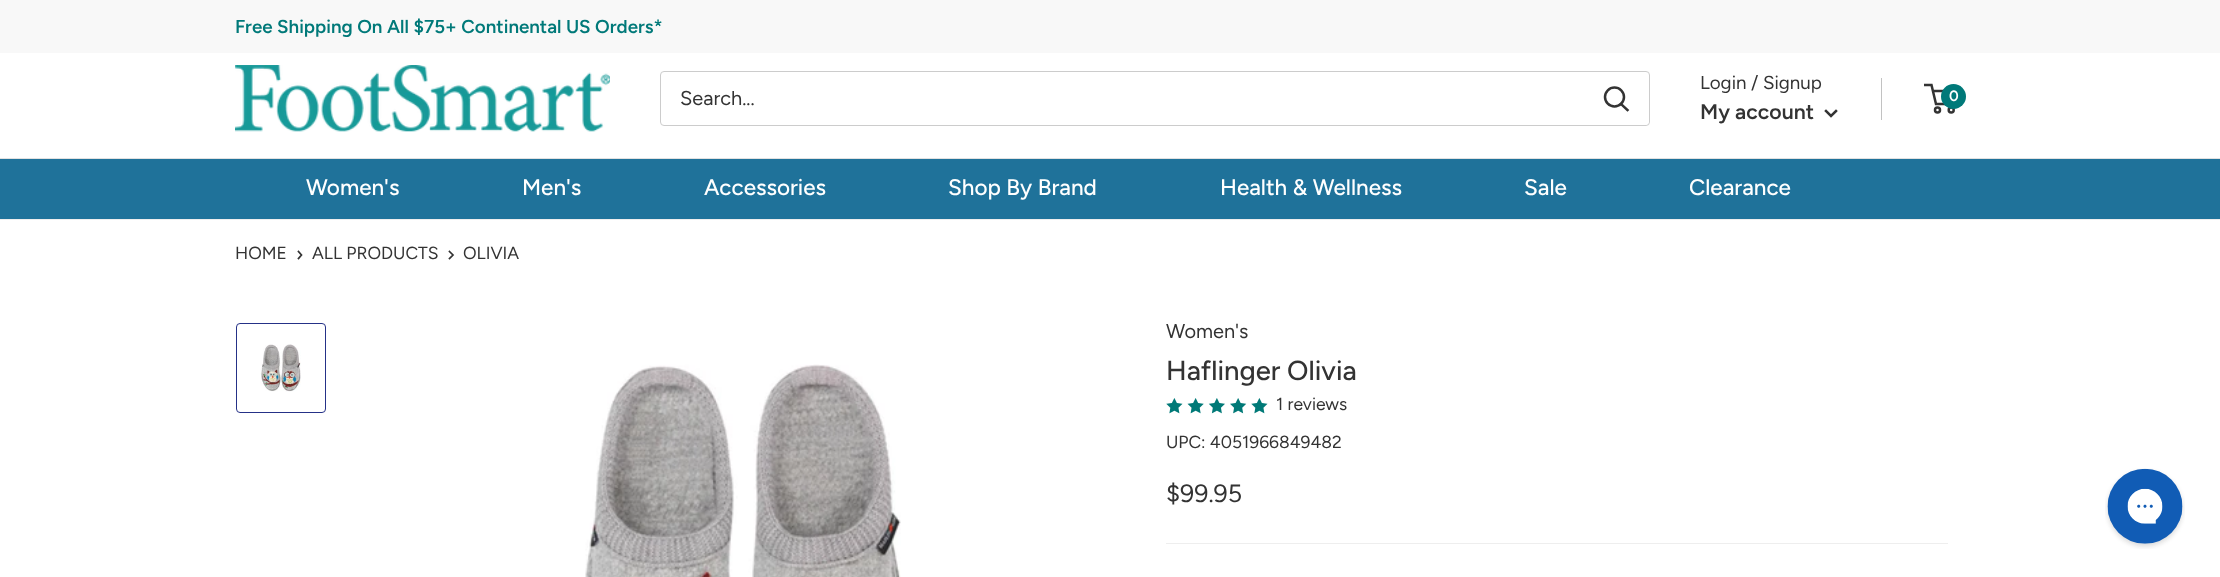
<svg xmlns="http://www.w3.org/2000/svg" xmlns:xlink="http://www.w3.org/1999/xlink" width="2220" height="577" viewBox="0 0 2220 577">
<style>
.cls-1{font:600 18.75px Figtree;fill:#007979}
.cls-2{font:20px Figtree;fill:#333333}
.cls-3{font:18.75px Figtree;fill:#333333}
.cls-4{font:600 21.25px Figtree;fill:#333333}
.cls-5{font:600 15px Figtree;fill:#ffffff}
.cls-6{font:500 22.5px Figtree;fill:#ffffff}
.cls-7{font:17.5px Figtree;fill:#333333}
.cls-8{font:500 27.5px Figtree;fill:#333333}
.cls-9{font:25px Figtree;fill:#333333}
</style>
<rect width="100%" height="100%" fill="#ffffff"/>
<rect fill="#f8f8f8" x="0" y="0" width="2220" height="53"/>
<image xlink:href="image0.png" x="235" y="65" width="375" height="67"/>
<rect fill="none" stroke="#cccccc" x="660.5" y="71.5" width="989" height="54" rx="3.5"/>
<path fill="#ffffff" d="M1586 73H1645C1647 73 1649 75 1649 77V121C1649 123 1647 125 1645 125H1586Z"/>
<path fill="none" stroke="#333333" stroke-width="2.5" stroke-linecap="square" d="M1627.5 110L1621 104"/>
<circle fill="none" stroke="#333333" stroke-width="2.5" cx="1614.5" cy="97" r="9.5"/>
<rect fill="#c2c2c2" x="1881" y="78" width="1" height="42"/>
<path fill="none" stroke="#333333" stroke-width="2.5" stroke-linecap="square" d="M1836 111L1831 116L1826 111"/>
<circle fill="none" stroke="#333333" stroke-width="2.5" cx="1937.5" cy="110" r="2.5"/>
<circle fill="none" stroke="#333333" stroke-width="2.5" cx="1951.2" cy="110" r="2.5"/>
<path fill="none" stroke="#333333" stroke-width="2.5" d="M1933 91H1955.5L1954 104H1936L1931.5 85H1924"/>
<circle fill="#007979" cx="1953.5" cy="96.5" r="12.5"/>
<rect fill="#1f729a" x="0" y="159" width="2220" height="60"/>
<rect fill="#e1e1e1" x="0" y="158" width="2220" height="1"/>
<rect fill="#eeeeee" x="0" y="219" width="2220" height="1"/>
<path fill="none" stroke="#333333" stroke-width="1.7" stroke-linecap="square" d="M298.5 251.5L301.5 255L298.5 258.5"/>
<path fill="none" stroke="#333333" stroke-width="1.7" stroke-linecap="square" d="M449.5 251.5L453 255L449.5 258.5"/>
<rect fill="none" stroke="#253187" x="236.5" y="323.5" width="89" height="89" rx="3.5"/>
<image xlink:href="image1.png" x="260" y="344" width="41" height="48"/>
<image xlink:href="image2.png" x="585" y="364" width="316" height="213"/>
<image xlink:href="image3.png" x="1166" y="398" width="17" height="16"/>
<image xlink:href="image4.png" x="1187" y="398" width="17" height="16"/>
<image xlink:href="image5.png" x="1208" y="398" width="17" height="16"/>
<image xlink:href="image6.png" x="1230" y="398" width="17" height="16"/>
<image xlink:href="image3.png" x="1251" y="398" width="17" height="16"/>
<rect fill="#eeeeee" x="1166" y="543" width="782" height="1"/>
<image xlink:href="image7.png" x="2105" y="468" width="80" height="81"/>
<text class="cls-1" x="235" y="33">Free Shipping On All $75+ Continental US Orders*</text>
<text class="cls-2" x="680" y="105">Search...</text>
<text class="cls-3" x="1700" y="89">Login / Signup</text>
<text class="cls-4" x="1700" y="119">My account</text>
<text class="cls-5" x="1949" y="101">0</text>
<text class="cls-6" x="306" y="195">Women's</text>
<text class="cls-6" x="522" y="195">Men's</text>
<text class="cls-6" x="704" y="195">Accessories</text>
<text class="cls-6" x="948" y="195">Shop By Brand</text>
<text class="cls-6" x="1220" y="195">Health &amp; Wellness</text>
<text class="cls-6" x="1524" y="195">Sale</text>
<text class="cls-6" x="1689" y="195">Clearance</text>
<text class="cls-7" x="235" y="259">HOME</text>
<text class="cls-7" x="312" y="259">ALL PRODUCTS</text>
<text class="cls-7" x="463" y="259">OLIVIA</text>
<text class="cls-2" x="1166" y="338">Women's</text>
<text class="cls-8" x="1166" y="380">Haflinger Olivia</text>
<text class="cls-7" x="1276" y="410">1 reviews</text>
<text class="cls-7" x="1166" y="448">UPC: 4051966849482</text>
<text class="cls-9" x="1166" y="502">$99.95</text>
</svg>
